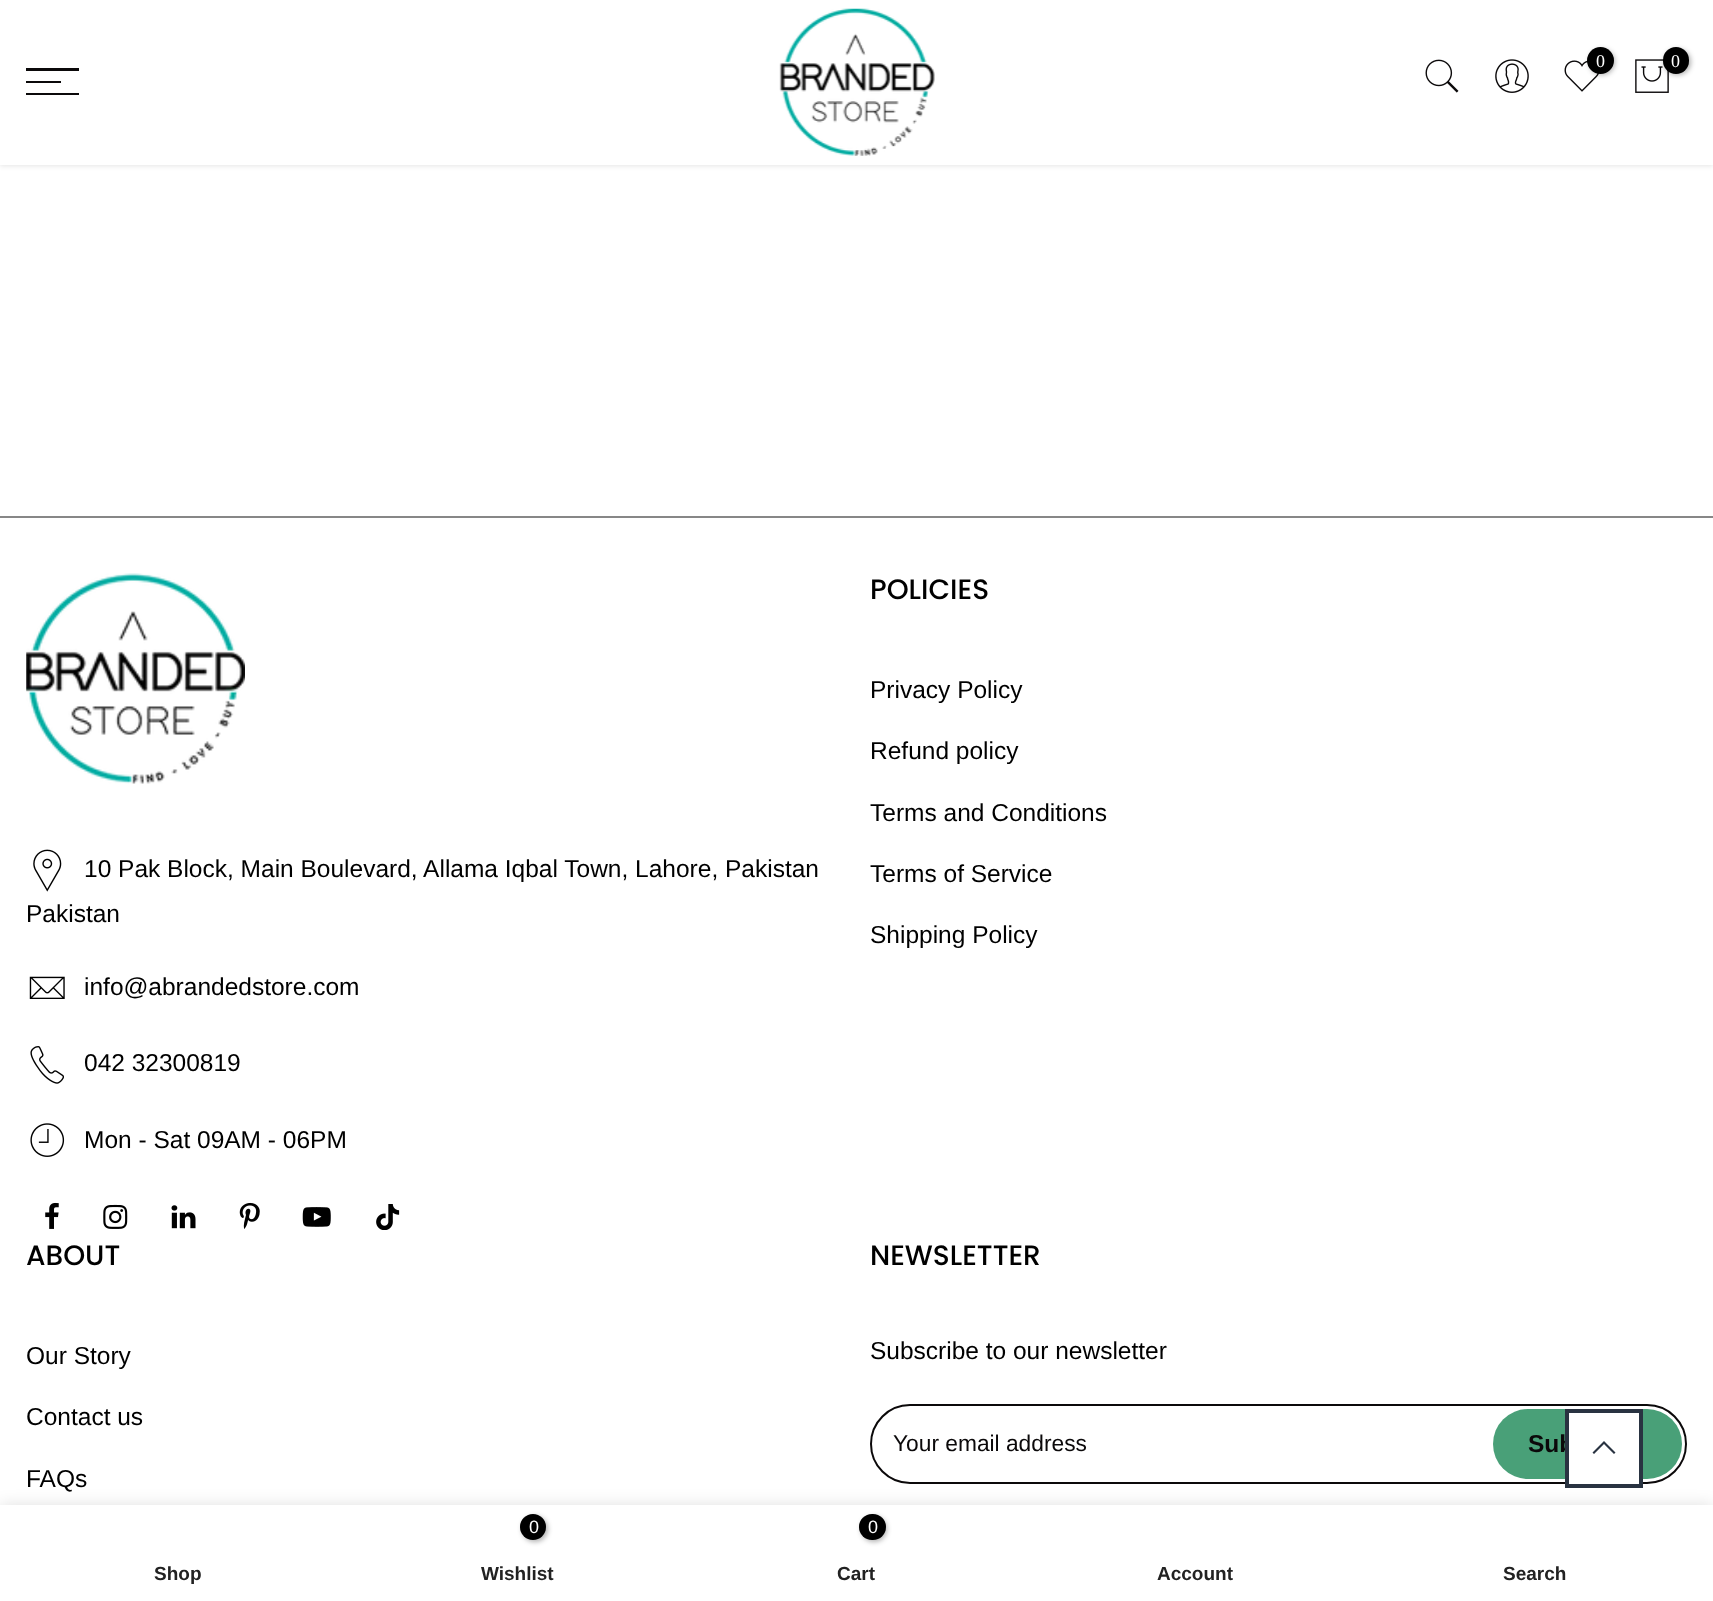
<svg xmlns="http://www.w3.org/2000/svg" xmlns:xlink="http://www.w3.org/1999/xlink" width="1713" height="1601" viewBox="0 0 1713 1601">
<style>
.cls-1{font:18px Liberation Serif;fill:#ffffff}
.cls-2{font:500 28px Poppins;fill:#000000}
.cls-3{font:24.5px Liberation Sans;fill:#000000}
.cls-4{font:22.75px Liberation Sans;fill:#0b090a}
.cls-5{font:bold 24.5px Liberation Sans;fill:#0b090a}
.cls-6{font:bold 19px Liberation Sans;fill:#222222}
.cls-7{font:18px Liberation Sans;fill:#ffffff}
</style>
<rect width="100%" height="100%" fill="#ffffff"/>
<rect fill="#000000" fill-opacity="0.1" filter="blur(2.5px)" x="0" y="2" width="1713" height="164"/>
<rect fill="#ffffff" x="0" y="0" width="1713" height="165"/>
<image xlink:href="image0.png" x="779" y="8" width="156" height="148"/>
<image xlink:href="image1.png" x="1425" y="59" width="34" height="34"/>
<image xlink:href="image2.png" x="1495" y="59" width="34" height="34"/>
<image xlink:href="image3.png" x="1564" y="60" width="35" height="32"/>
<rect fill="#000000" fill-opacity="0.3" filter="blur(2.5px)" x="1589" y="49" width="26" height="26" rx="13"/>
<circle fill="#000000" cx="1600.5" cy="60.5" r="13.5"/>
<image xlink:href="image4.png" x="1635" y="59" width="34" height="34"/>
<rect fill="#000000" fill-opacity="0.3" filter="blur(2.5px)" x="1664" y="49" width="27" height="26" rx="13"/>
<rect fill="#000000" x="1663" y="47" width="26" height="27" rx="13"/>
<rect fill="#0b090a" x="26" y="68" width="53" height="3"/>
<rect fill="#0b090a" x="26" y="81" width="35" height="2"/>
<rect fill="#0b090a" x="26" y="93" width="53" height="2"/>
<rect fill="#878787" x="0" y="516" width="1713" height="2"/>
<image xlink:href="image5.png" x="26" y="573" width="219" height="211"/>
<image xlink:href="image6.png" x="33" y="849" width="29" height="43"/>
<image xlink:href="image7.png" x="29" y="976" width="36" height="23"/>
<image xlink:href="image8.png" x="30" y="1046" width="34" height="38"/>
<image xlink:href="image9.png" x="30" y="1123" width="35" height="34"/>
<image xlink:href="image10.png" x="45" y="1202" width="14" height="27"/>
<image xlink:href="image11.png" x="103" y="1204" width="25" height="25"/>
<image xlink:href="image12.png" x="171" y="1205" width="25" height="24"/>
<image xlink:href="image13.png" x="239" y="1202" width="21" height="27"/>
<image xlink:href="image14.png" x="302" y="1207" width="29" height="20"/>
<image xlink:href="image15.png" x="376" y="1204" width="24" height="26"/>
<rect fill="none" stroke="#0b090a" stroke-width="2" x="871" y="1405" width="815" height="78" rx="39"/>
<rect fill="#49a078" x="1493" y="1409" width="189" height="70" rx="35"/>
<text class="cls-1" x="1596" y="67">0</text>
<text class="cls-1" x="1671" y="67">0</text>
<text class="cls-2" x="870" y="599">POLICIES</text>
<text class="cls-3" x="870" y="698">Privacy Policy</text>
<text class="cls-3" x="870" y="759">Refund policy</text>
<text class="cls-3" x="870" y="821">Terms and Conditions</text>
<text class="cls-3" x="870" y="882">Terms of Service</text>
<text class="cls-3" x="870" y="943">Shipping Policy</text>
<text class="cls-3" x="84" y="877">10 Pak Block, Main Boulevard, Allama Iqbal Town, Lahore, Pakistan</text>
<text class="cls-3" x="26" y="922">Pakistan</text>
<text class="cls-3" x="84" y="995">info@abrandedstore.com</text>
<text class="cls-3" x="84" y="1071">042 32300819</text>
<text class="cls-3" x="84" y="1148">Mon - Sat 09AM - 06PM</text>
<text class="cls-2" x="26" y="1265">ABOUT</text>
<text class="cls-3" x="26" y="1364">Our Story</text>
<text class="cls-3" x="26" y="1425">Contact us</text>
<text class="cls-3" x="26" y="1487">FAQs</text>
<text class="cls-2" x="870" y="1265">NEWSLETTER</text>
<text class="cls-3" x="870" y="1359">Subscribe to our newsletter</text>
<text class="cls-4" x="893" y="1451">Your email address</text>
<text class="cls-5" x="1528" y="1452">Sub</text>
<rect fill="#ffffff" stroke="#293341" stroke-width="4" x="1567" y="1411" width="74" height="75"/>
<path fill="#293341" d="M1605.5 1442.5L1604 1441L1592.5 1452.5L1594 1454L1604 1444L1614 1454L1615.5 1452.5Z"/>
<rect fill="#000000" fill-opacity="0.12" filter="blur(8px)" x="0" y="1505" width="1713" height="96"/>
<rect fill="#ffffff" x="0" y="1505" width="1713" height="96"/>
<text class="cls-6" x="154" y="1580">Shop</text>
<rect fill="#000000" fill-opacity="0.3" filter="blur(2.5px)" x="522" y="1516" width="26" height="26" rx="13"/>
<circle fill="#000000" cx="533" cy="1527" r="13"/>
<text class="cls-7" x="529" y="1533">0</text>
<text class="cls-6" x="481" y="1580">Wishlist</text>
<rect fill="#000000" fill-opacity="0.3" filter="blur(2.5px)" x="861" y="1516" width="26" height="26" rx="13"/>
<rect fill="#000000" x="859" y="1514" width="27" height="26" rx="13"/>
<text class="cls-7" x="868" y="1533">0</text>
<text class="cls-6" x="837" y="1580">Cart</text>
<text class="cls-6" x="1157" y="1580">Account</text>
<text class="cls-6" x="1503" y="1580">Search</text>
</svg>
